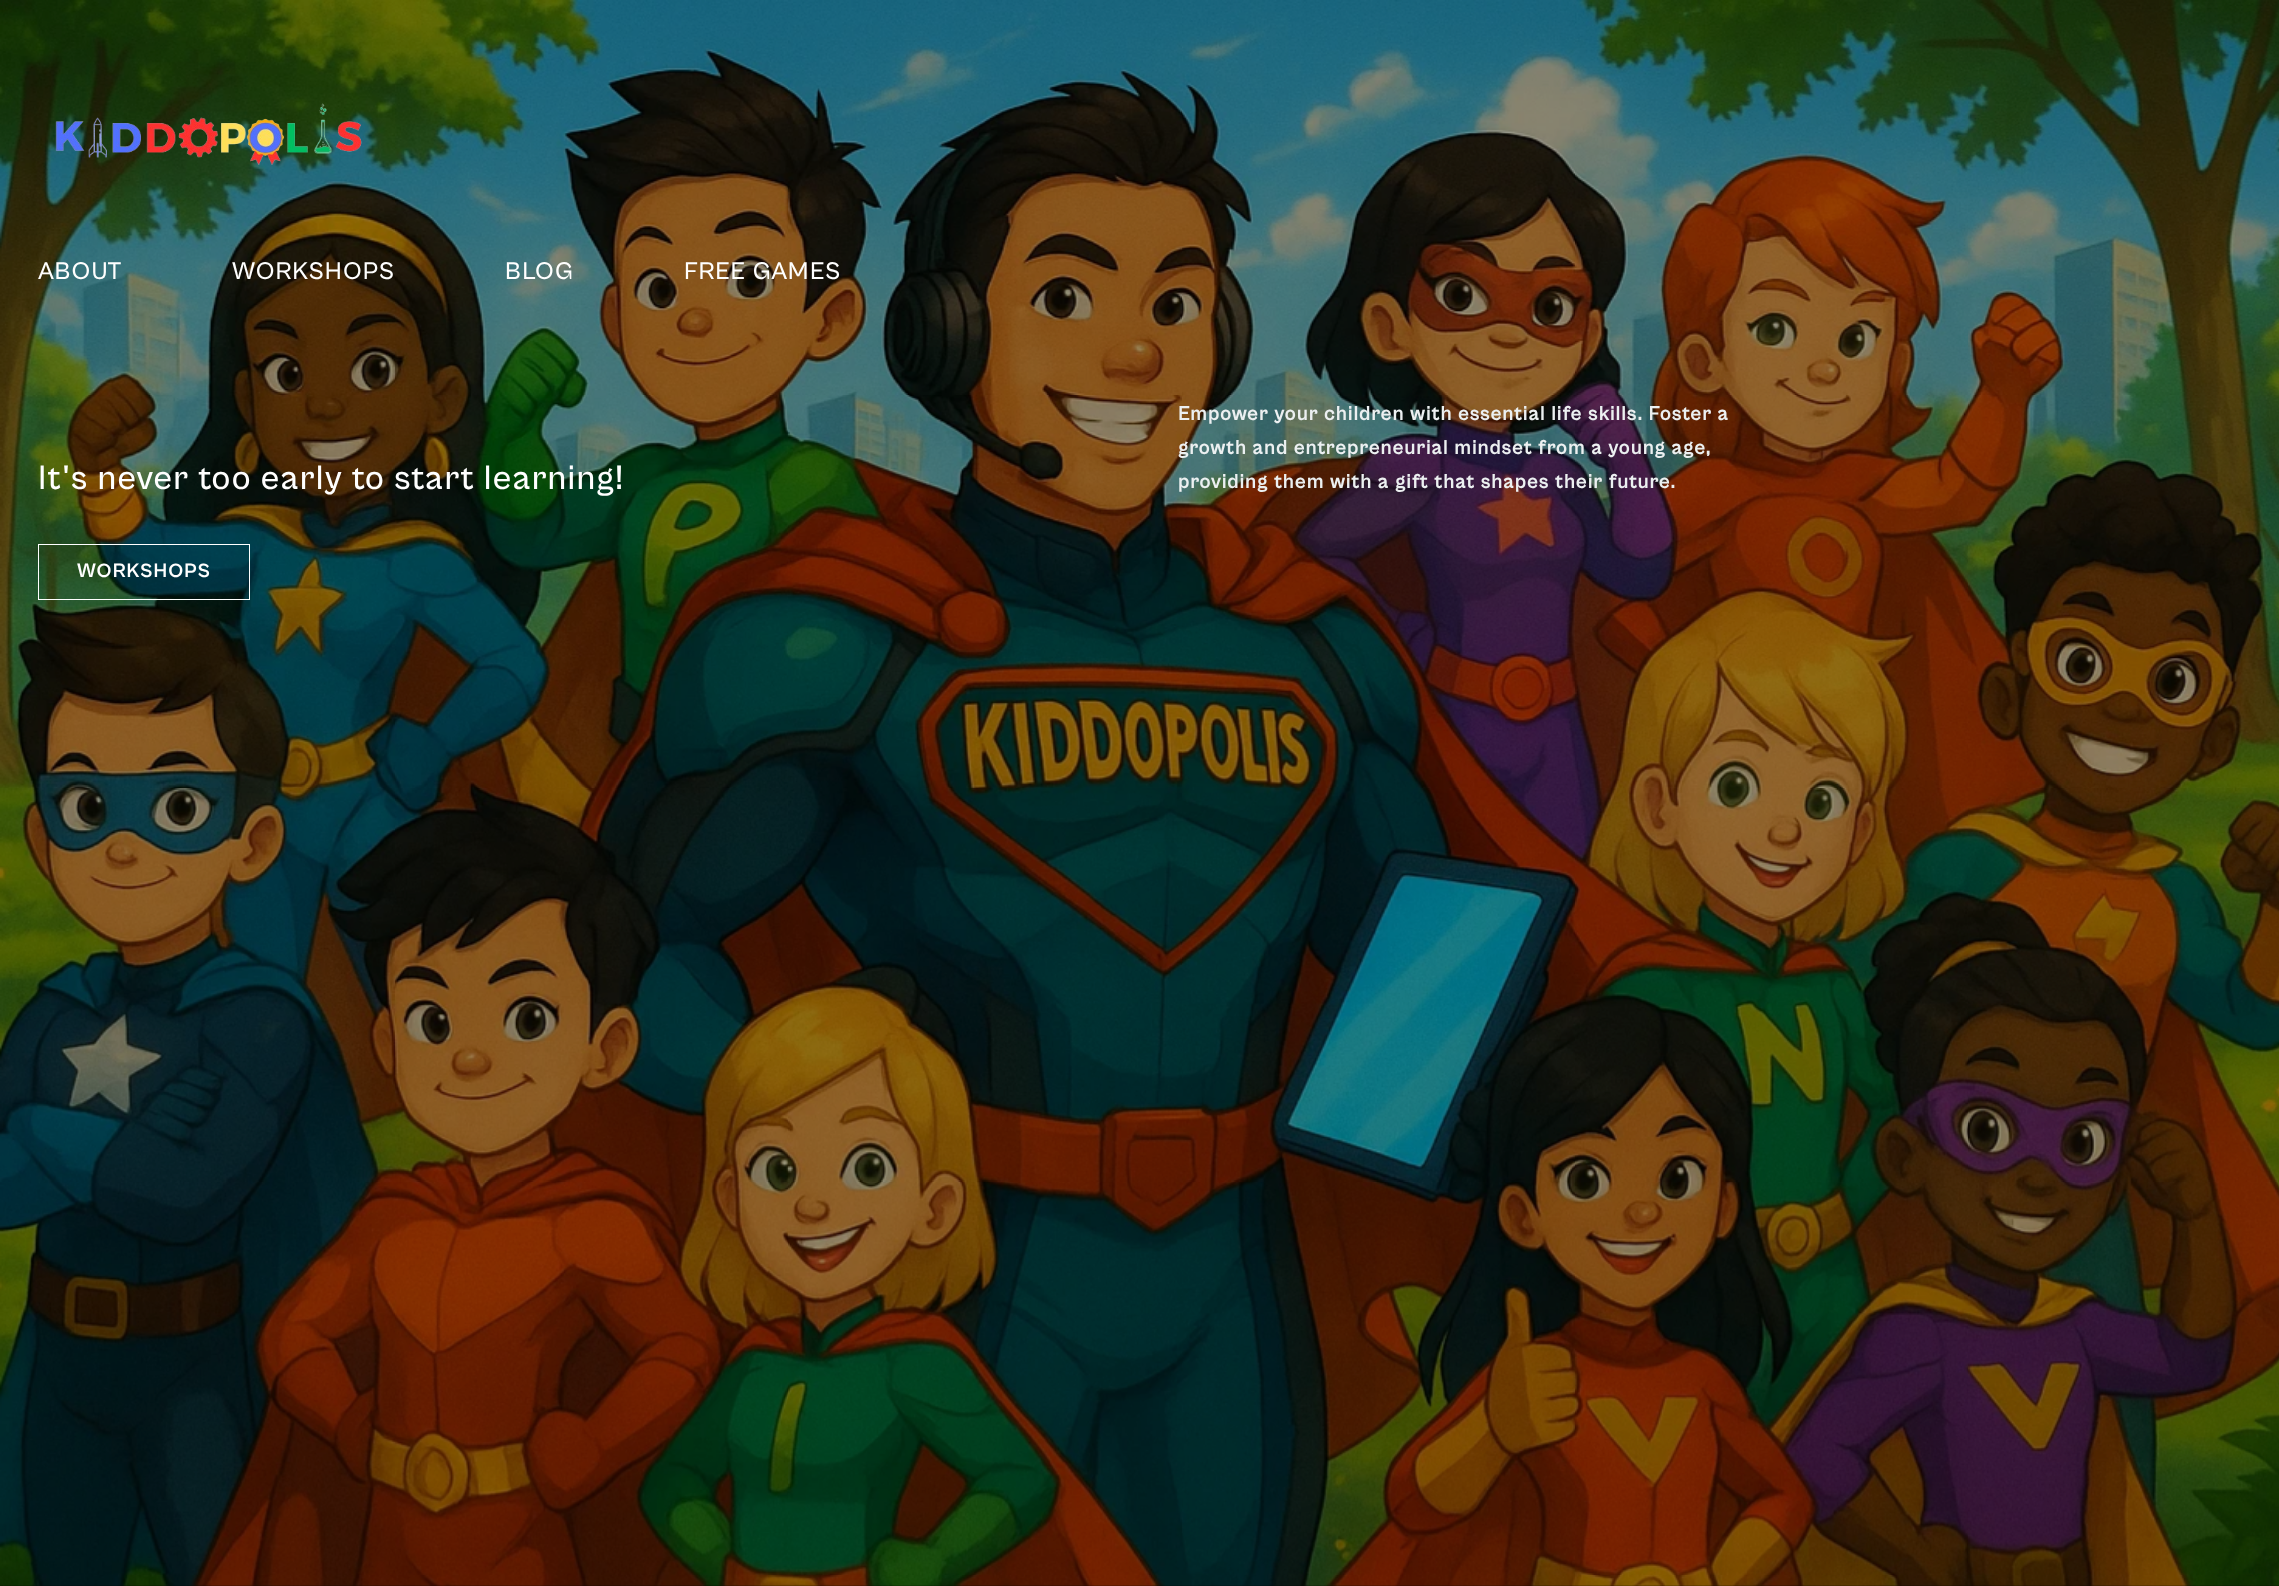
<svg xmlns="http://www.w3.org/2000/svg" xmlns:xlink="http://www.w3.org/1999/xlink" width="2279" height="1586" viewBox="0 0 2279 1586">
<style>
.cls-1{font:500 25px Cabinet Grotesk;letter-spacing:1.25px;fill:#ffffff}
.cls-2{font:500 35px Cabinet Grotesk;letter-spacing:1.25px;fill:#ffffff}
.cls-3{font:bold 20px 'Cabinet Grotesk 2';letter-spacing:1.25px;fill:#ffffff}
.cls-4{font:bold 20px Cabinet Grotesk;letter-spacing:1.25px;fill:#ecf0f1}
</style>
<rect width="100%" height="100%" fill="#000000"/>
<image xlink:href="image0.png" x="0" y="0" width="2279" height="1586"/>
<image xlink:href="image1.png" x="55" y="103" width="307" height="62"/>
<rect fill="none" stroke="#ffffff" x="38.5" y="544.5" width="211" height="55"/>
<text class="cls-1" x="38" y="279">ABOUT</text>
<text class="cls-1" x="232" y="279">WORKSHOPS</text>
<text class="cls-1" x="505" y="279">BLOG</text>
<text class="cls-1" x="684" y="279">FREE GAMES</text>
<text class="cls-2" x="38" y="489">It's never too early to start learning!</text>
<text class="cls-3" x="77" y="577">WORKSHOPS</text>
<text class="cls-4"><tspan x="1178" y="420">Empower your children with essential life skills. Foster a</tspan><tspan x="1178" y="454">growth and entrepreneurial mindset from a young age,</tspan><tspan x="1178" y="488">providing them with a gift that shapes their future.</tspan></text>
</svg>
